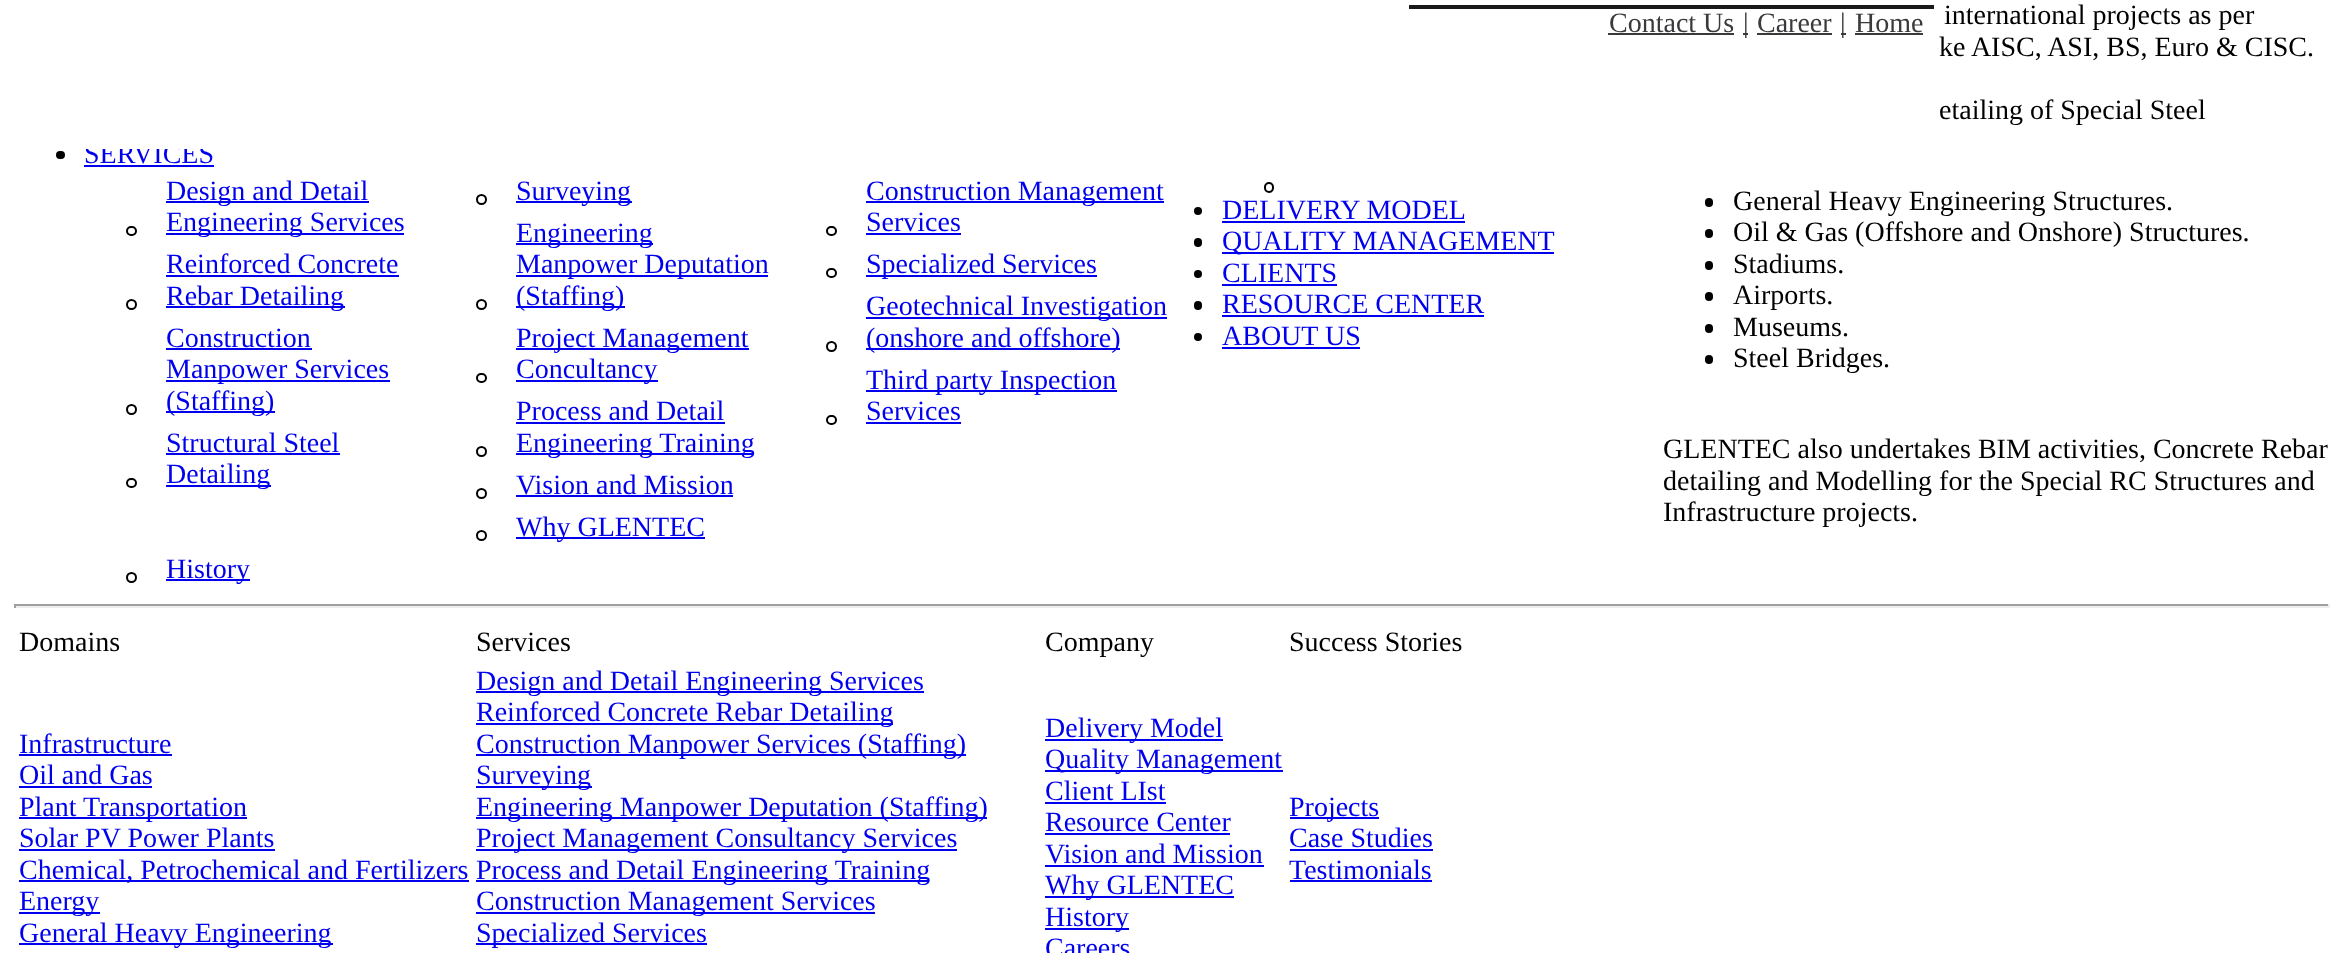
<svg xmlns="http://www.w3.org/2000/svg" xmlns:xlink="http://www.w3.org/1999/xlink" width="2342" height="953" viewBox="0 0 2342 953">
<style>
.cls-1{font:28px Liberation Serif;fill:#0000ee}
.cls-2{font:28px Liberation Serif;fill:#000000}
.cls-3{font:28px Liberation Serif;fill:#3a3a3d}
</style>
<rect width="100%" height="100%" fill="#ffffff"/>
<rect fill="#000000" x="56" y="151" width="9" height="8" rx="4"/>
<rect fill="#0000ee" x="84" y="165" width="130" height="2"/>
<rect fill="none" stroke="#000000" stroke-width="2" x="127" y="227" width="9" height="8" rx="4"/>
<rect fill="#0000ee" x="166" y="201" width="203" height="2"/>
<rect fill="#0000ee" x="166" y="233" width="238" height="2"/>
<circle fill="none" stroke="#000000" stroke-width="2" cx="131.5" cy="304.5" r="4.5"/>
<rect fill="#0000ee" x="166" y="275" width="233" height="2"/>
<rect fill="#0000ee" x="166" y="306" width="179" height="2"/>
<circle fill="none" stroke="#000000" stroke-width="2" cx="131.5" cy="409.5" r="4.5"/>
<rect fill="#0000ee" x="166" y="348" width="146" height="2"/>
<rect fill="#0000ee" x="166" y="380" width="224" height="2"/>
<rect fill="#0000ee" x="166" y="411" width="109" height="2"/>
<rect fill="none" stroke="#000000" stroke-width="2" x="127" y="479" width="9" height="8" rx="4"/>
<rect fill="#0000ee" x="166" y="453" width="174" height="2"/>
<rect fill="#0000ee" x="166" y="485" width="105" height="2"/>
<circle fill="none" stroke="#000000" stroke-width="2" cx="481.5" cy="199.5" r="4.5"/>
<rect fill="#0000ee" x="516" y="201" width="116" height="2"/>
<circle fill="none" stroke="#000000" stroke-width="2" cx="481.5" cy="304.5" r="4.5"/>
<rect fill="#0000ee" x="516" y="243" width="137" height="2"/>
<rect fill="#0000ee" x="516" y="275" width="252" height="2"/>
<rect fill="#0000ee" x="516" y="306" width="109" height="2"/>
<rect fill="none" stroke="#000000" stroke-width="2" x="477" y="374" width="9" height="8" rx="4"/>
<rect fill="#0000ee" x="516" y="348" width="233" height="2"/>
<rect fill="#0000ee" x="516" y="380" width="142" height="2"/>
<circle fill="none" stroke="#000000" stroke-width="2" cx="481.5" cy="451.5" r="4.5"/>
<rect fill="#0000ee" x="516" y="422" width="209" height="2"/>
<rect fill="#0000ee" x="516" y="453" width="238" height="2"/>
<rect fill="none" stroke="#000000" stroke-width="2" x="827" y="227" width="9" height="8" rx="4"/>
<rect fill="#0000ee" x="866" y="201" width="298" height="2"/>
<rect fill="#0000ee" x="866" y="233" width="95" height="2"/>
<rect fill="none" stroke="#000000" stroke-width="2" x="827" y="269" width="9" height="8" rx="4"/>
<rect fill="#0000ee" x="866" y="275" width="231" height="2"/>
<circle fill="none" stroke="#000000" stroke-width="2" cx="831.5" cy="346.5" r="4.5"/>
<rect fill="#0000ee" x="866" y="317" width="301" height="2"/>
<rect fill="#0000ee" x="866" y="348" width="254" height="2"/>
<rect fill="none" stroke="#000000" stroke-width="2" x="827" y="416" width="9" height="8" rx="4"/>
<rect fill="#0000ee" x="866" y="390" width="251" height="2"/>
<rect fill="#0000ee" x="866" y="422" width="95" height="2"/>
<rect fill="none" stroke="#000000" stroke-width="2" x="1265" y="183" width="8" height="9" rx="4"/>
<circle fill="#000000" cx="1198" cy="211" r="4"/>
<rect fill="#0000ee" x="1222" y="221" width="243" height="2"/>
<rect fill="#000000" x="1194" y="238" width="8" height="9" rx="4"/>
<rect fill="#0000ee" x="1222" y="252" width="332" height="2"/>
<circle fill="#000000" cx="1198" cy="274" r="4"/>
<rect fill="#0000ee" x="1222" y="284" width="115" height="2"/>
<rect fill="#000000" x="1194" y="301" width="8" height="9" rx="4"/>
<rect fill="#0000ee" x="1222" y="315" width="262" height="2"/>
<circle fill="#000000" cx="1198" cy="337" r="4"/>
<rect fill="#0000ee" x="1222" y="347" width="138" height="2"/>
<circle fill="none" stroke="#000000" stroke-width="2" cx="481.5" cy="493.5" r="4.5"/>
<rect fill="#0000ee" x="516" y="495" width="217" height="2"/>
<circle fill="none" stroke="#000000" stroke-width="2" cx="481.5" cy="535.5" r="4.5"/>
<rect fill="#0000ee" x="516" y="537" width="189" height="2"/>
<circle fill="none" stroke="#000000" stroke-width="2" cx="131.5" cy="577.5" r="4.5"/>
<rect fill="#0000ee" x="166" y="579" width="84" height="2"/>
<rect fill="#000000" x="1705" y="198" width="8" height="9" rx="4"/>
<rect fill="#000000" x="1705" y="229" width="8" height="9" rx="4"/>
<rect fill="#000000" x="1705" y="261" width="8" height="9" rx="4"/>
<rect fill="#000000" x="1705" y="292" width="8" height="9" rx="4"/>
<rect fill="#000000" x="1705" y="324" width="8" height="9" rx="4"/>
<rect fill="#000000" x="1705" y="355" width="8" height="9" rx="4"/>
<rect fill="#1a1a1a" x="1409" y="5" width="525" height="4"/>
<rect fill="#3a3a3d" x="1608" y="33" width="126" height="2"/>
<rect fill="#3a3a3d" x="1743" y="33" width="5" height="2"/>
<rect fill="#3a3a3d" x="1757" y="33" width="75" height="2"/>
<rect fill="#3a3a3d" x="1841" y="33" width="5" height="2"/>
<rect fill="#3a3a3d" x="1855" y="33" width="68" height="2"/>
<rect fill="#9f9f9f" x="14" y="604" width="2315" height="2"/>
<rect fill="#eeeeee" x="2328" y="604" width="2" height="4"/>
<rect fill="#eeeeee" x="14" y="606" width="2315" height="2"/>
<rect fill="#9f9f9f" x="14" y="604" width="2" height="4"/>
<rect fill="#0000ee" x="19" y="754" width="153" height="2"/>
<rect fill="#0000ee" x="19" y="786" width="133" height="2"/>
<rect fill="#0000ee" x="19" y="817" width="228" height="2"/>
<rect fill="#0000ee" x="19" y="849" width="256" height="2"/>
<rect fill="#0000ee" x="19" y="880" width="450" height="2"/>
<rect fill="#0000ee" x="19" y="912" width="81" height="2"/>
<rect fill="#0000ee" x="19" y="943" width="314" height="2"/>
<rect fill="#0000ee" x="476" y="691" width="448" height="2"/>
<rect fill="#0000ee" x="476" y="723" width="417" height="2"/>
<rect fill="#0000ee" x="476" y="754" width="490" height="2"/>
<rect fill="#0000ee" x="476" y="786" width="116" height="2"/>
<rect fill="#0000ee" x="476" y="817" width="511" height="2"/>
<rect fill="#0000ee" x="476" y="849" width="481" height="2"/>
<rect fill="#0000ee" x="476" y="880" width="453" height="2"/>
<rect fill="#0000ee" x="476" y="912" width="399" height="2"/>
<rect fill="#0000ee" x="476" y="943" width="231" height="2"/>
<rect fill="#0000ee" x="1045" y="739" width="178" height="2"/>
<rect fill="#0000ee" x="1045" y="770" width="238" height="2"/>
<rect fill="#0000ee" x="1045" y="802" width="121" height="2"/>
<rect fill="#0000ee" x="1045" y="833" width="185" height="2"/>
<rect fill="#0000ee" x="1045" y="865" width="219" height="2"/>
<rect fill="#0000ee" x="1045" y="896" width="189" height="2"/>
<rect fill="#0000ee" x="1045" y="928" width="84" height="2"/>
<rect fill="#0000ee" x="1290" y="817" width="89" height="2"/>
<rect fill="#0000ee" x="1290" y="849" width="143" height="2"/>
<rect fill="#0000ee" x="1290" y="880" width="142" height="2"/>
<text class="cls-1" x="84" y="163">SERVICES</text>
<text class="cls-1"><tspan x="166" y="200">Design and Detail</tspan><tspan x="166" y="231">Engineering Services</tspan><tspan x="166" y="273">Reinforced Concrete</tspan><tspan x="166" y="305">Rebar Detailing</tspan><tspan x="166" y="347">Construction</tspan><tspan x="166" y="378">Manpower Services</tspan><tspan x="166" y="410">(Staffing)</tspan><tspan x="166" y="452">Structural Steel</tspan><tspan x="166" y="483">Detailing</tspan></text>
<text class="cls-1"><tspan x="516" y="200">Surveying</tspan><tspan x="516" y="242">Engineering</tspan><tspan x="516" y="273">Manpower Deputation</tspan><tspan x="516" y="305">(Staffing)</tspan><tspan x="516" y="347">Project Management</tspan><tspan x="516" y="378">Concultancy</tspan><tspan x="516" y="420">Process and Detail</tspan><tspan x="516" y="452">Engineering Training</tspan></text>
<text class="cls-1"><tspan x="866" y="200">Construction Management</tspan><tspan x="866" y="231">Services</tspan><tspan x="866" y="273">Specialized Services</tspan><tspan x="866" y="315">Geotechnical Investigation</tspan><tspan x="866" y="347">(onshore and offshore)</tspan><tspan x="866" y="389">Third party Inspection</tspan><tspan x="866" y="420">Services</tspan></text>
<text class="cls-1"><tspan x="1222" y="219">DELIVERY MODEL</tspan><tspan x="1222" y="250">QUALITY MANAGEMENT</tspan><tspan x="1222" y="282">CLIENTS</tspan><tspan x="1222" y="313">RESOURCE CENTER</tspan><tspan x="1222" y="345">ABOUT US</tspan></text>
<text class="cls-1"><tspan x="516" y="494">Vision and Mission</tspan><tspan x="516" y="536">Why GLENTEC</tspan></text>
<text class="cls-1" x="166" y="578">History</text>
<text class="cls-2" x="1944" y="24">international projects as per</text>
<text class="cls-2" x="1939" y="56">ke AISC, ASI, BS, Euro &amp; CISC.</text>
<text class="cls-2" x="1939" y="119">etailing of Special Steel</text>
<text class="cls-2"><tspan x="1733" y="210">General Heavy Engineering Structures.</tspan><tspan x="1733" y="241">Oil &amp; Gas (Offshore and Onshore) Structures.</tspan><tspan x="1733" y="273">Stadiums.</tspan><tspan x="1733" y="304">Airports.</tspan><tspan x="1733" y="336">Museums.</tspan><tspan x="1733" y="367">Steel Bridges.</tspan></text>
<text class="cls-2"><tspan x="1663" y="458">GLENTEC also undertakes BIM activities, Concrete Rebar</tspan><tspan x="1663" y="490">detailing and Modelling for the Special RC Structures and</tspan><tspan x="1663" y="521">Infrastructure projects.</tspan></text>
<rect fill="#ffffff" x="85" y="144" width="127" height="5"/>
<text class="cls-3" x="1609" y="32">Contact Us</text>
<text class="cls-3" x="1743" y="32">|</text>
<text class="cls-3" x="1757" y="32">Career</text>
<text class="cls-3" x="1840" y="32">|</text>
<text class="cls-3" x="1855" y="32">Home</text>
<text class="cls-2" x="19" y="651">Domains</text>
<text class="cls-2" x="476" y="651">Services</text>
<text class="cls-2" x="1045" y="651">Company</text>
<text class="cls-2" x="1289" y="651">Success Stories</text>
<text class="cls-1"><tspan x="19" y="753">Infrastructure</tspan><tspan x="19" y="784">Oil and Gas</tspan><tspan x="19" y="816">Plant Transportation</tspan><tspan x="19" y="847">Solar PV Power Plants</tspan><tspan x="19" y="879">Chemical, Petrochemical and Fertilizers</tspan><tspan x="19" y="910">Energy</tspan><tspan x="19" y="942">General Heavy Engineering</tspan></text>
<text class="cls-1"><tspan x="476" y="690">Design and Detail Engineering Services</tspan><tspan x="476" y="721">Reinforced Concrete Rebar Detailing</tspan><tspan x="476" y="753">Construction Manpower Services (Staffing)</tspan><tspan x="476" y="784">Surveying</tspan><tspan x="476" y="816">Engineering Manpower Deputation (Staffing)</tspan><tspan x="476" y="847">Project Management Consultancy Services</tspan><tspan x="476" y="879">Process and Detail Engineering Training</tspan><tspan x="476" y="910">Construction Management Services</tspan><tspan x="476" y="942">Specialized Services</tspan></text>
<text class="cls-1"><tspan x="1045" y="737">Delivery Model</tspan><tspan x="1045" y="768">Quality Management</tspan><tspan x="1045" y="800">Client LIst</tspan><tspan x="1045" y="831">Resource Center</tspan><tspan x="1045" y="863">Vision and Mission</tspan><tspan x="1045" y="894">Why GLENTEC</tspan><tspan x="1045" y="926">History</tspan><tspan x="1045" y="957">Careers</tspan></text>
<text class="cls-1"><tspan x="1289" y="816">Projects</tspan><tspan x="1289" y="847">Case Studies</tspan><tspan x="1289" y="879">Testimonials</tspan></text>
</svg>
